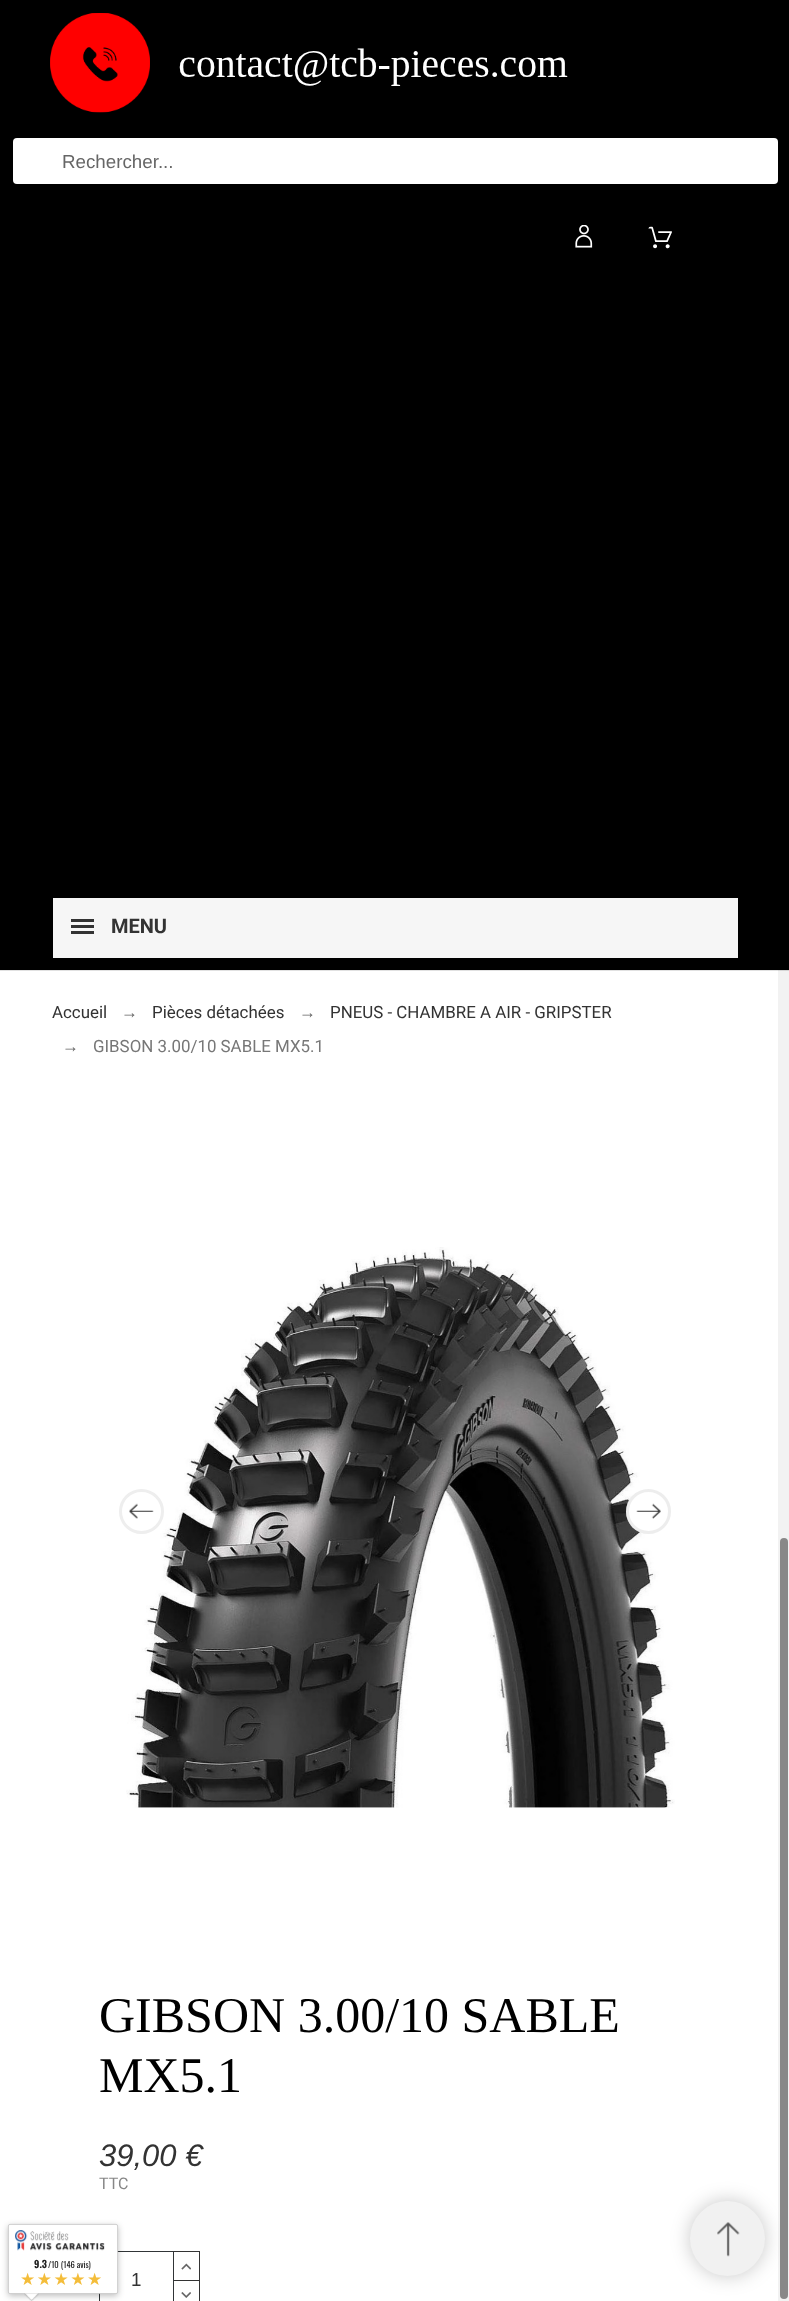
<svg xmlns="http://www.w3.org/2000/svg" xmlns:xlink="http://www.w3.org/1999/xlink" width="789" height="2301" viewBox="0 0 789 2301">
<style>
.cls-1{font:18.75px Liberation Sans;fill:#666666}
.cls-2{font:bold 20px Roboto;fill:#333333}
.cls-3{font:16.9px Roboto;fill:#333333}
.cls-4{font:16.9px Liberation Serif;fill:#666666}
.cls-5{font:16.9px Roboto;fill:#777777}
.cls-6{font:50px Liberation Serif;fill:#000000}
.cls-7{font:italic 31px Liberation Sans;fill:#333333}
.cls-8{font:16px Roboto;fill:#878787}
.cls-9{font:18.75px Liberation Sans;letter-spacing:1px;fill:#333333}
.cls-10{font:bold 10px Oswald;fill:#222222}
.cls-11{font:8.5px Oswald;fill:#222222}
.cls-12{font:17px DejaVu Sans;letter-spacing:1.5px;fill:#f4bd3a}
</style>
<rect width="100%" height="100%" fill="#ffffff"/>
<rect fill="#e1e1e1" x="0" y="970" width="789" height="1"/>
<rect fill="#000000" x="0" y="0" width="789" height="970"/>
<image xlink:href="image0.png" x="50" y="13" width="518" height="100"/>
<rect fill="#ffffff" x="13" y="138" width="765" height="46" rx="4"/>
<image xlink:href="image1.png" x="575" y="225" width="18" height="23"/>
<image xlink:href="image2.png" x="648" y="226" width="24" height="23"/>
<rect fill="#f6f6f6" x="53" y="898" width="685" height="60"/>
<rect fill="#333333" x="71" y="919" width="23" height="3"/>
<rect fill="#333333" x="71" y="925" width="23" height="3"/>
<rect fill="#333333" x="71" y="931" width="23" height="3"/>
<image xlink:href="image3.png" x="126" y="1247" width="549" height="561"/>
<circle fill="none" stroke="#eeeeee" stroke-width="3" cx="141.5" cy="1511.5" r="21"/>
<image xlink:href="image4.png" x="129" y="1503" width="25" height="16"/>
<circle fill="#ffffff" cx="648.5" cy="1511.5" r="22.5"/>
<circle fill="none" stroke="#dcdcdc" stroke-opacity="0.5" stroke-width="3" cx="648.5" cy="1511.5" r="21"/>
<image xlink:href="image5.png" x="636" y="1503" width="25" height="16"/>
<rect fill="none" stroke="#313537" x="99.5" y="2251.5" width="74" height="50"/>
<rect fill="#333333" x="174" y="2251" width="26" height="1"/>
<rect fill="#333333" x="199" y="2251" width="1" height="29"/>
<image xlink:href="image6.png" x="181" y="2263" width="10" height="7"/>
<rect fill="#333333" x="174" y="2280" width="26" height="1"/>
<rect fill="#333333" x="199" y="2280" width="1" height="21"/>
<image xlink:href="image7.png" x="181" y="2292" width="10" height="6"/>
<rect fill="#000000" fill-opacity="0.22" filter="blur(9.5px)" x="690" y="2201" width="75" height="75" rx="37.5"/>
<rect fill="#000000" fill-opacity="0.05" x="778" y="970" width="11" height="1331"/>
<rect fill="#888888" x="780" y="1538" width="8" height="761" rx="4"/>
<rect fill="#000000" fill-opacity="0.25" filter="blur(3px)" x="8" y="2226" width="110" height="70" rx="2"/>
<rect fill="#ffffff" stroke="#c5c5c5" stroke-width="0.8" x="8.4" y="2224.4" width="109.2" height="69.2" rx="1.6"/>
<image xlink:href="image8.png" x="15" y="2230" width="90" height="21"/>
<image xlink:href="image9.png" x="24" y="2293" width="15" height="8"/>
<circle fill="#f1f1f1" cx="727.5" cy="2238.5" r="37.5"/>
<image xlink:href="image10.png" x="717" y="2222" width="23" height="35"/>
<text class="cls-1" x="62" y="168">Rechercher...</text>
<text class="cls-2" x="111" y="933">MENU</text>
<text class="cls-3" x="52" y="1018">Accueil</text>
<text class="cls-4" x="121" y="1018">→</text>
<text class="cls-3" x="152" y="1018">Pièces détachées</text>
<text class="cls-4" x="299" y="1018">→</text>
<text class="cls-3" x="330" y="1018">PNEUS - CHAMBRE A AIR - GRIPSTER</text>
<text class="cls-4" x="62" y="1052">→</text>
<text class="cls-5" x="93" y="1052">GIBSON 3.00/10 SABLE MX5.1</text>
<text class="cls-6"><tspan x="99" y="2032">GIBSON 3.00/10 SABLE</tspan><tspan x="99" y="2092">MX5.1</tspan></text>
<text class="cls-7" x="99" y="2166">39,00 €</text>
<text class="cls-8" x="99" y="2189">TTC</text>
<text class="cls-9" x="131" y="2286">1</text>
<text class="cls-10" x="34" y="2268">9.3</text>
<text class="cls-11" x="48" y="2268">/10 (146 avis)</text>
<text class="cls-12" x="20" y="2285">★★★★★</text>
</svg>
